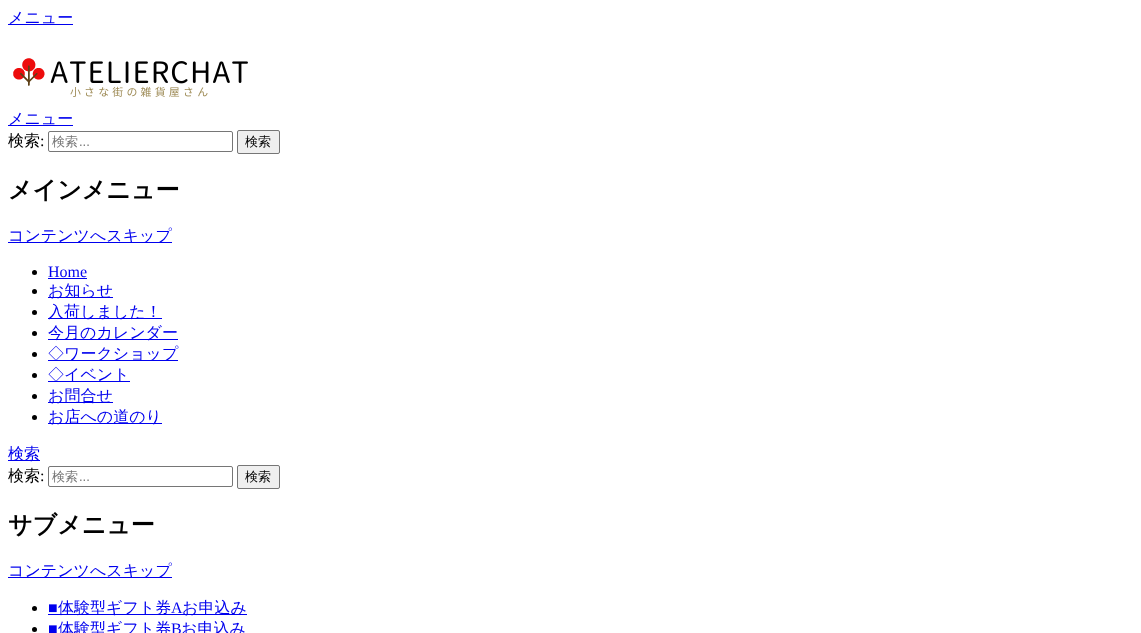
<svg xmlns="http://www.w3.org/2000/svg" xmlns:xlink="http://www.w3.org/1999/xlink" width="1141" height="633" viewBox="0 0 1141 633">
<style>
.cls-1{font:500 16px WenQuanYi Zen Hei;fill:#0000ee}
.cls-2{font:500 16px WenQuanYi Zen Hei;fill:#000000}
.cls-3{font:16px Liberation Serif;fill:#000000}
.cls-4{font:500 13px WenQuanYi Zen Hei;fill:#757575}
.cls-5{font:13px Liberation Sans;fill:#757575}
.cls-6{font:500 13px WenQuanYi Zen Hei;fill:#000000}
.cls-7{font:bold 24px WenQuanYi Zen Hei;fill:#000000}
.cls-8{font:16px Liberation Serif;fill:#0000ee}
</style>
<rect width="100%" height="100%" fill="#ffffff"/>
<rect fill="#0000ee" x="8" y="24" width="65" height="1"/>
<image xlink:href="image0.png" x="13" y="58" width="235" height="39"/>
<rect fill="#0000ee" x="8" y="125" width="65" height="1"/>
<rect fill="none" stroke="#767676" x="48.5" y="131.5" width="184" height="20" rx="1.5"/>
<rect fill="#efefef" stroke="#767676" x="237.5" y="130.5" width="42" height="23" rx="1.5"/>
<rect fill="#0000ee" x="8" y="242" width="164" height="1"/>
<circle fill="#000000" cx="34.5" cy="272.5" r="2.5"/>
<rect fill="#0000ee" x="48" y="278" width="39" height="1"/>
<circle fill="#000000" cx="34.5" cy="291.5" r="2.5"/>
<rect fill="#0000ee" x="48" y="297" width="65" height="1"/>
<circle fill="#000000" cx="34.5" cy="312.5" r="2.5"/>
<rect fill="#0000ee" x="48" y="318" width="114" height="1"/>
<circle fill="#000000" cx="34.5" cy="333.5" r="2.5"/>
<rect fill="#0000ee" x="48" y="339" width="130" height="1"/>
<circle fill="#000000" cx="34.5" cy="354.5" r="2.5"/>
<rect fill="#0000ee" x="48" y="360" width="130" height="1"/>
<circle fill="#000000" cx="34.5" cy="375.5" r="2.5"/>
<rect fill="#0000ee" x="48" y="381" width="82" height="1"/>
<circle fill="#000000" cx="34.5" cy="396.5" r="2.5"/>
<rect fill="#0000ee" x="48" y="402" width="65" height="1"/>
<circle fill="#000000" cx="34.5" cy="417.5" r="2.5"/>
<rect fill="#0000ee" x="48" y="423" width="114" height="1"/>
<rect fill="#0000ee" x="8" y="460" width="32" height="1"/>
<rect fill="none" stroke="#767676" x="48.5" y="466.5" width="184" height="20" rx="1.5"/>
<rect fill="#efefef" stroke="#767676" x="237.5" y="465.5" width="42" height="23" rx="1.5"/>
<rect fill="#0000ee" x="8" y="577" width="164" height="1"/>
<circle fill="#000000" cx="34.5" cy="608.5" r="2.5"/>
<rect fill="#0000ee" x="48" y="614" width="199" height="1"/>
<circle fill="#000000" cx="34.5" cy="629.5" r="2.5"/>
<text class="cls-1" x="8" y="23">メニュー</text>
<text class="cls-1" x="8" y="124">メニュー</text>
<text class="cls-2" x="8" y="146">検索</text>
<text class="cls-3" x="40" y="146">:</text>
<text class="cls-4" x="52" y="146">検索</text>
<text class="cls-5" x="79" y="146">...</text>
<text class="cls-6" x="245" y="146">検索</text>
<text class="cls-7" x="8" y="198">メインメニュー</text>
<text class="cls-1" x="8" y="241">コンテンツへスキップ</text>
<text class="cls-8" x="48" y="277">Home</text>
<text class="cls-1"><tspan x="48" y="296">お知らせ</tspan><tspan x="48" y="317">入荷しました！</tspan><tspan x="48" y="338">今月のカレンダー</tspan><tspan x="48" y="359">◇ワークショップ</tspan><tspan x="48" y="380">◇イベント</tspan><tspan x="48" y="401">お問合せ</tspan><tspan x="48" y="422">お店への道のり</tspan></text>
<text class="cls-1" x="8" y="459">検索</text>
<text class="cls-2" x="8" y="481">検索</text>
<text class="cls-3" x="40" y="481">:</text>
<text class="cls-4" x="52" y="481">検索</text>
<text class="cls-5" x="79" y="481">...</text>
<text class="cls-6" x="245" y="481">検索</text>
<text class="cls-7" x="8" y="533">サブメニュー</text>
<text class="cls-1" x="8" y="576">コンテンツへスキップ</text>
<text class="cls-8" x="48" y="613">■</text>
<text class="cls-1" x="58" y="613">体験型ギフト券</text>
<text class="cls-8" x="171" y="613">A</text>
<text class="cls-1" x="182" y="613">お申込み</text>
<text class="cls-8" x="48" y="634">■</text>
<text class="cls-1" x="58" y="634">体験型ギフト券</text>
<text class="cls-8" x="171" y="634">B</text>
<text class="cls-1" x="181" y="634">お申込み</text>
</svg>
